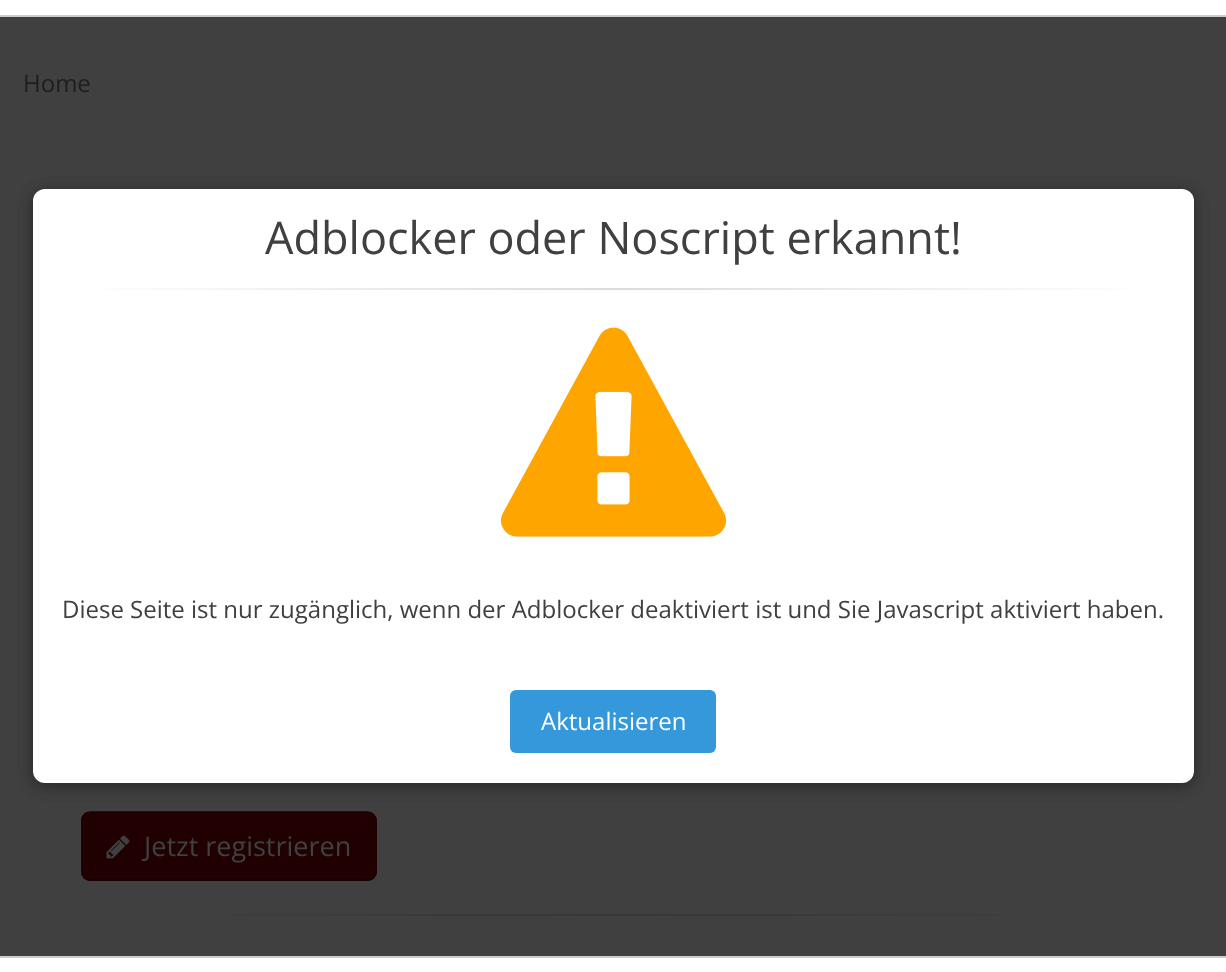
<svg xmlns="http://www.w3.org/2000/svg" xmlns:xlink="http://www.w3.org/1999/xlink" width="1226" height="972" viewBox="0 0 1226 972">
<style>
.cls-1{font:24px Open Sans;fill:#1e1e1e}
.cls-2{font:27px Open Sans;fill:#404040}
.cls-3{font:45px Open Sans;fill:#404040}
.cls-4{font:24px Open Sans;fill:#404040}
.cls-5{font:24px Open Sans;fill:#ffffff}
</style>
<defs>
<linearGradient id="g1" gradientUnits="userSpaceOnUse" x1="81" y1="914" x2="1146" y2="914"><stop offset="0" stop-color="#404040"/><stop offset="0.5" stop-color="#373737"/><stop offset="1" stop-color="#404040"/></linearGradient>
<linearGradient id="g2" gradientUnits="userSpaceOnUse" x1="63" y1="289" x2="1164" y2="289"><stop offset="0" stop-color="#ffffff"/><stop offset="0.5" stop-color="#dbdbdb"/><stop offset="1" stop-color="#ffffff"/></linearGradient>
</defs>
<rect width="100%" height="100%" fill="#404040"/>
<rect fill="#ffffff" x="0" y="0" width="1226" height="15"/>
<rect fill="#cccccc" x="0" y="15" width="1226" height="2"/>
<rect fill="#210002" x="81" y="812" width="296" height="69" rx="9"/>
<path fill="none" stroke="#140001" stroke-width="1.5" d="M373.5 877.5C372 879 369.5 880 367.5 880H90C88 880 85.5 879 84 877.5"/>
<path fill="none" stroke="#210002" stroke-width="1.5" d="M84 877.5C82.5 876 82 873.5 82 871.5V820.5C82 818.5 82.5 816 84 814.5C85.5 813 88 812 90 812H367.5C369.5 812 372 813 373.5 814.5C375 816 376 818.5 376 820.5V871.5C376 873.5 375 876 373.5 877.5"/>
<image xlink:href="image0.png" x="106" y="835" width="24" height="24"/>
<rect fill="url(#g1)" x="229" y="914" width="769" height="2"/>
<rect fill="#000000" fill-opacity="0.2" filter="blur(7.5px)" x="33" y="192" width="1161" height="594" rx="12"/>
<rect fill="#000000" fill-opacity="0.2" filter="blur(7.5px)" x="33" y="192" width="1161" height="594" rx="12"/>
<rect fill="#ffffff" x="33" y="189" width="1161" height="594" rx="12"/>
<rect fill="url(#g2)" x="101" y="288" width="1025" height="2"/>
<image xlink:href="image1.png" x="500" y="327" width="227" height="210"/>
<rect fill="#3498db" x="510" y="690" width="206" height="63" rx="6"/>
<rect fill="#ffffff" x="0" y="958" width="1226" height="14"/>
<rect fill="#cccccc" x="0" y="956" width="1226" height="2"/>
<text class="cls-1" x="23" y="92">Home</text>
<text class="cls-2" x="144" y="856">Jetzt registrieren</text>
<text class="cls-3" x="265" y="254">Adblocker oder Noscript erkannt!</text>
<text class="cls-4" x="62" y="618">Diese Seite ist nur zugänglich, wenn der Adblocker deaktiviert ist und Sie Javascript aktiviert haben.</text>
<text class="cls-5" x="541" y="730">Aktualisieren</text>
</svg>
